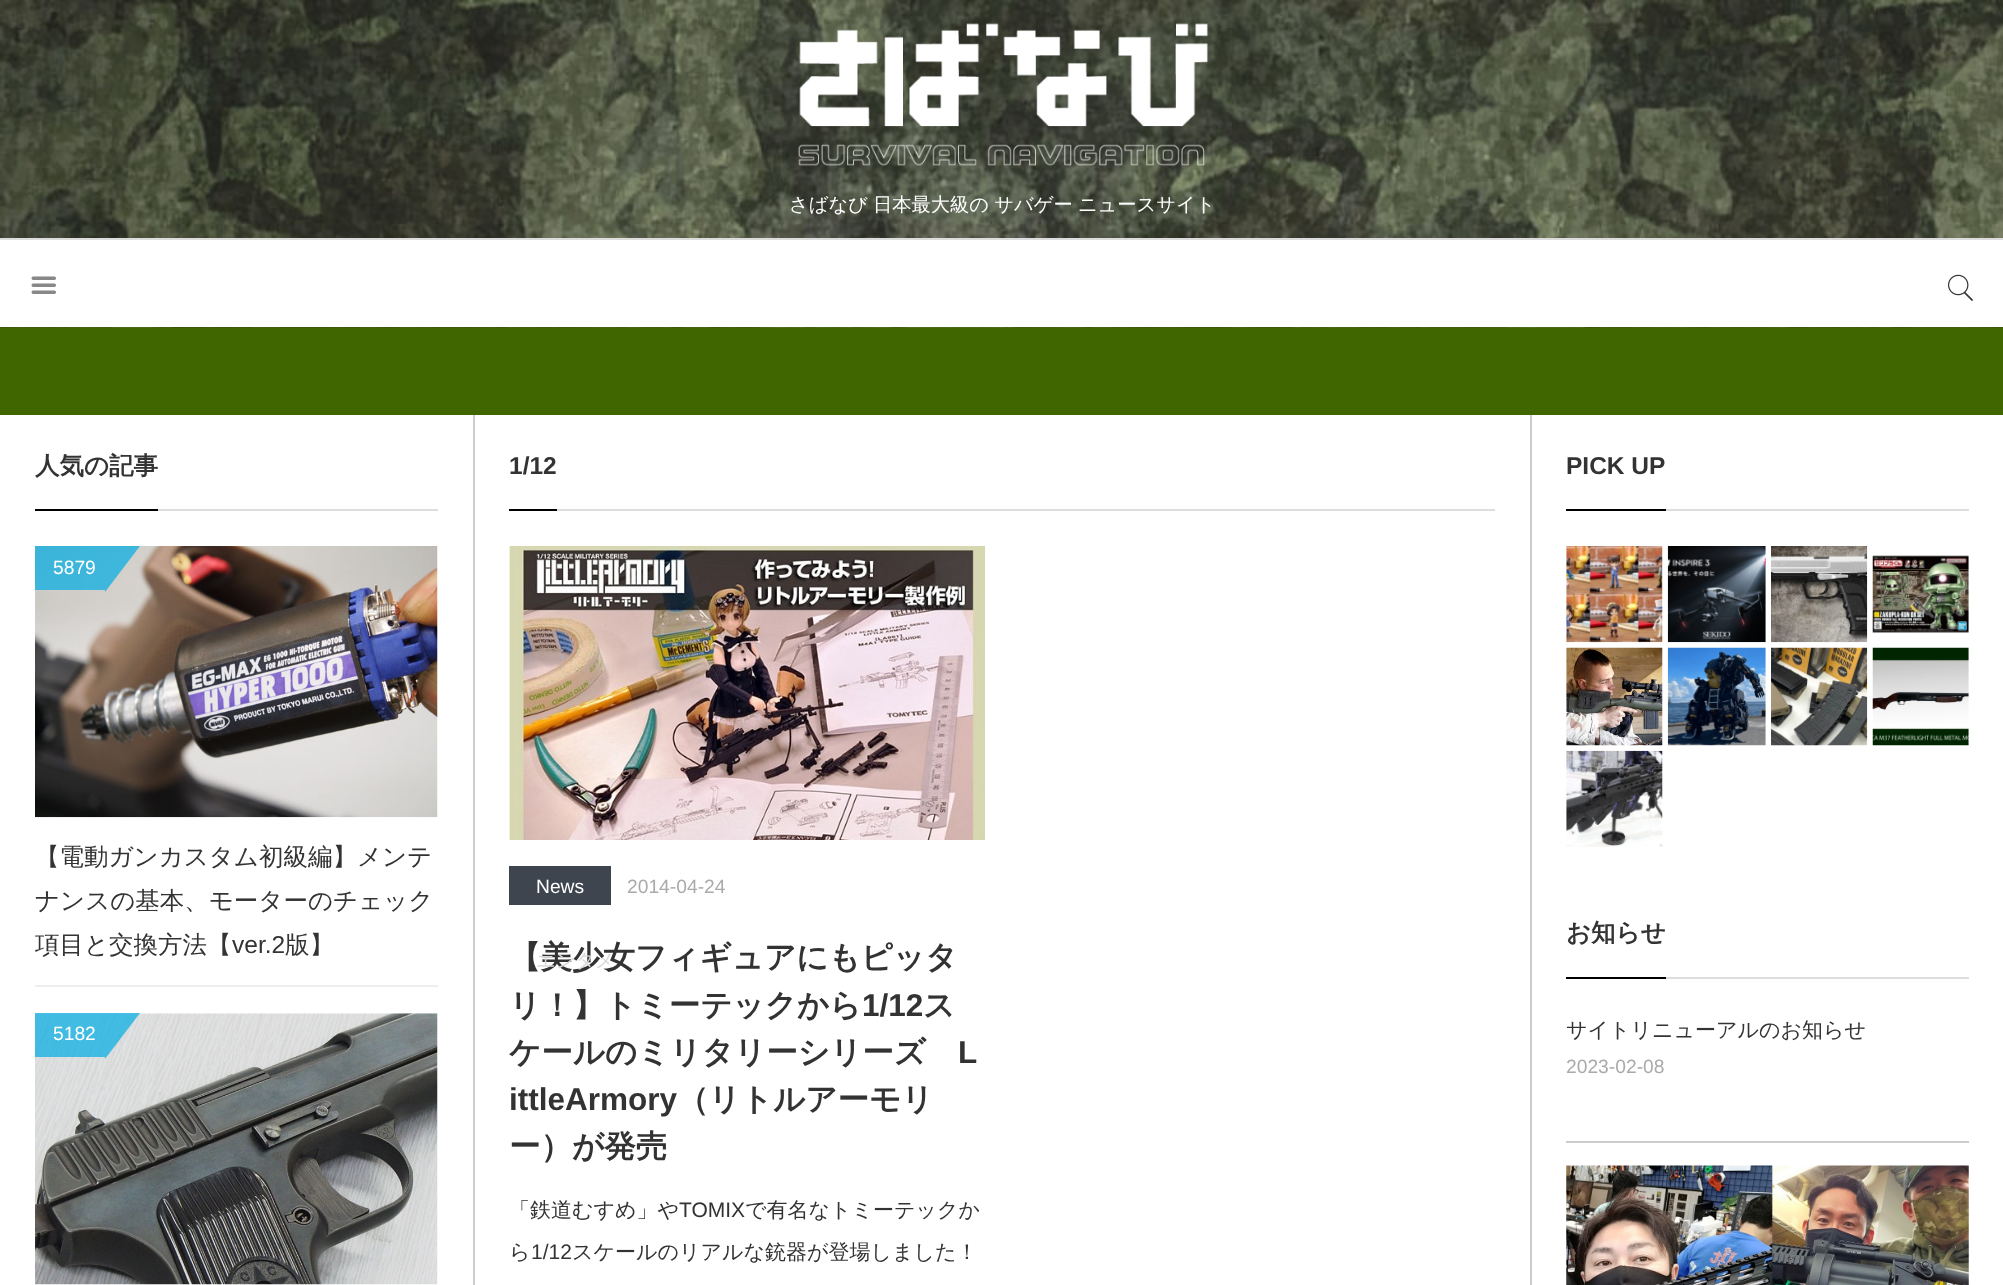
<svg xmlns="http://www.w3.org/2000/svg" xmlns:xlink="http://www.w3.org/1999/xlink" width="2003" height="1285" viewBox="0 0 2003 1285">
<style>
.cls-1{font:500 19.25px WenQuanYi Zen Hei;fill:#ffffff}
.cls-2{font:bold 24.5px WenQuanYi Zen Hei;fill:#333333}
.cls-3{font:19.25px Liberation Sans;fill:#ffffff}
.cls-4{font:500 24.5px WenQuanYi Zen Hei;fill:#333333}
.cls-5{font:24.5px Liberation Sans;fill:#333333}
.cls-6{font:bold 24.5px Liberation Sans;fill:#333333}
.cls-7{font:19.25px Liberation Sans;fill:#aaaaaa}
.cls-8{font:bold 31.5px WenQuanYi Zen Hei;fill:#333333}
.cls-9{font:500 19.25px WenQuanYi Zen Hei;fill:#d9d9d9}
.cls-10{font:bold 31.5px Liberation Sans;fill:#333333}
.cls-11{font:500 21px WenQuanYi Zen Hei;fill:#333333}
.cls-12{font:21px Liberation Sans;fill:#333333}
</style>
<rect width="100%" height="100%" fill="#ffffff"/>
<rect fill="#406600" x="0" y="327" width="2003" height="88"/>
<image xlink:href="image0.png" x="0" y="0" width="2003" height="328"/>
<image xlink:href="image1.png" x="798" y="23" width="410" height="143"/>
<rect fill="#ffffff" x="0" y="240" width="2003" height="87"/>
<rect fill="#dddddd" x="0" y="238" width="2003" height="2"/>
<image xlink:href="image2.png" x="31" y="276" width="25" height="18"/>
<image xlink:href="image3.png" x="1948" y="274" width="25" height="27"/>
<rect fill="#dddddd" x="158" y="509" width="280" height="2"/>
<rect fill="#000000" x="35" y="509" width="123" height="2"/>
<rect fill="#eeeeee" x="35" y="985" width="403" height="2"/>
<image xlink:href="image4.png" x="35" y="546" width="403" height="272"/>
<rect fill="#00ace4" fill-opacity="0.7" x="35" y="546" width="70" height="44"/>
<path fill="#00ace4" fill-opacity="0.7" d="M105 592V546H140Z"/>
<image xlink:href="image5.png" x="35" y="1013" width="403" height="272"/>
<rect fill="#00ace4" fill-opacity="0.7" x="35" y="1013" width="70" height="44"/>
<path fill="#00ace4" fill-opacity="0.7" d="M105 1059V1013H140Z"/>
<rect fill="#cccccc" x="1530" y="415" width="2" height="870"/>
<rect fill="#cccccc" x="473" y="415" width="2" height="870"/>
<rect fill="#dddddd" x="557" y="509" width="938" height="2"/>
<rect fill="#000000" x="509" y="509" width="48" height="2"/>
<image xlink:href="image6.png" x="509" y="546" width="477" height="294"/>
<rect fill="#3e454f" x="509" y="866" width="102" height="39"/>
<rect fill="#dddddd" x="1666" y="509" width="303" height="2"/>
<rect fill="#000000" x="1566" y="509" width="100" height="2"/>
<image xlink:href="image7.png" x="1566" y="546" width="97" height="97"/>
<image xlink:href="image8.png" x="1667" y="546" width="99" height="97"/>
<image xlink:href="image9.png" x="1771" y="546" width="97" height="97"/>
<image xlink:href="image10.png" x="1872" y="555" width="97" height="78"/>
<image xlink:href="image11.png" x="1566" y="647" width="97" height="99"/>
<image xlink:href="image12.png" x="1667" y="647" width="99" height="99"/>
<image xlink:href="image13.png" x="1771" y="647" width="97" height="99"/>
<image xlink:href="image14.png" x="1872" y="647" width="97" height="99"/>
<image xlink:href="image15.png" x="1566" y="750" width="97" height="97"/>
<rect fill="#dddddd" x="1666" y="977" width="303" height="2"/>
<rect fill="#000000" x="1566" y="977" width="100" height="2"/>
<rect fill="#cccccc" x="1566" y="1141" width="403" height="2"/>
<image xlink:href="image16.png" x="1566" y="1165" width="403" height="120"/>
<text class="cls-1" x="789" y="211" word-spacing="-0.5">さばなび 日本最大級の サバゲー ニュースサイト</text>
<text class="cls-2" x="35" y="474">人気の記事</text>
<text class="cls-3" x="53" y="574">5879</text>
<text class="cls-4"><tspan x="35" y="865">【電動ガンカスタム初級編】メンテ</tspan><tspan x="35" y="909">ナンスの基本、モーターのチェック</tspan><tspan x="35" y="953">項目と交換方法【</tspan></text>
<text class="cls-5" x="232" y="953">ver.2</text>
<text class="cls-4" x="285" y="953">版】</text>
<text class="cls-3" x="53" y="1040">5182</text>
<text class="cls-6" x="509" y="474">1/12</text>
<text class="cls-3" x="536" y="893">News</text>
<text class="cls-7" x="627" y="893">2014-04-24</text>
<text class="cls-8" x="509" y="968">【美少女フィギュアにもピッタ</text>
<text class="cls-9" x="536" y="967">エンタメ</text>
<text class="cls-8" x="509" y="1016">リ！】トミーテックから</text>
<text class="cls-10" x="862" y="1016">1/12</text>
<text class="cls-8" x="923" y="1016">ス</text>
<text class="cls-8" x="509" y="1063">ケールのミリタリーシリーズ</text>
<text class="cls-10" x="958" y="1063">L</text>
<text class="cls-10" x="509" y="1110">ittleArmory</text>
<text class="cls-8" x="677" y="1110">（リトルアーモリ</text>
<text class="cls-8" x="509" y="1157">ー）が発売</text>
<text class="cls-11" x="509" y="1217">「鉄道むすめ」や</text>
<text class="cls-12" x="679" y="1217">TOMIX</text>
<text class="cls-11" x="745" y="1217">で有名なトミーテックか</text>
<text class="cls-11" x="509" y="1259">ら</text>
<text class="cls-12" x="531" y="1259">1/12</text>
<text class="cls-11" x="572" y="1259">スケールのリアルな銃器が登場しました！</text>
<text class="cls-6" x="1566" y="474">PICK UP</text>
<text class="cls-2" x="1566" y="941">お知らせ</text>
<text class="cls-11" x="1566" y="1037">サイトリニューアルのお知らせ</text>
<text class="cls-7" x="1566" y="1073">2023-02-08</text>
</svg>
